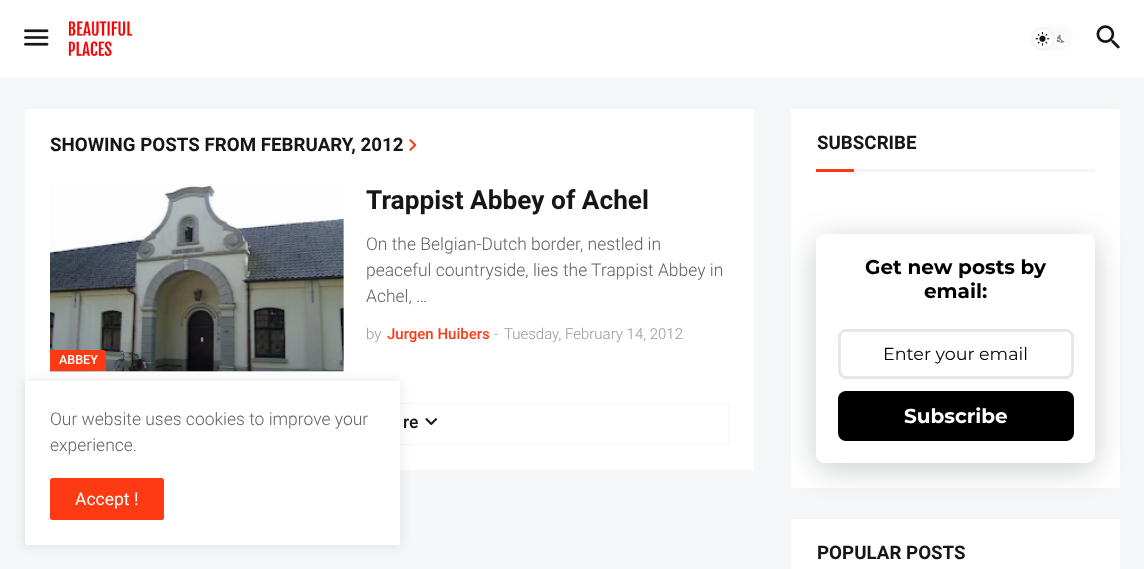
<svg xmlns="http://www.w3.org/2000/svg" xmlns:xlink="http://www.w3.org/1999/xlink" width="1144" height="569" viewBox="0 0 1144 569">
<style>
.cls-1{font:bold 18.75px Roboto;fill:#16161a}
.cls-2{font:bold 26.25px Roboto;fill:#16161a}
.cls-3{font:300 17.5px Roboto;fill:#626262}
.cls-4{font:300 15px Roboto;fill:#97979d}
.cls-5{font:500 15px Roboto;fill:#fd3a13}
.cls-6{font:500 12.5px Roboto;fill:#ffffff}
.cls-7{font:500 17.5px Roboto;fill:#16161a}
.cls-8{font:100 20px Montserrat;fill:#000000}
.cls-9{font:100 17.5px 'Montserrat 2';fill:#000000}
.cls-10{font:100 20px Montserrat;fill:#ffffff}
.cls-11{font:17.5px Roboto;fill:#ffffff}
</style>
<rect width="100%" height="100%" fill="#f5f6f7"/>
<rect fill="#ffffff" x="0" y="0" width="1144" height="78"/>
<image xlink:href="image0.png" x="24" y="29" width="25" height="17"/>
<image xlink:href="image1.png" x="68" y="21" width="65" height="35"/>
<rect fill="#fafafa" x="1030" y="26" width="43" height="25" rx="12.5"/>
<image xlink:href="image3.png" x="1056" y="34" width="9" height="9"/>
<rect fill="#000000" fill-opacity="0.1" filter="blur(1px)" x="1033" y="29" width="20" height="20" rx="10"/>
<circle fill="#ffffff" cx="1043" cy="39" r="10"/>
<image xlink:href="image2.png" x="1035" y="31" width="15" height="15"/>
<image xlink:href="image4.png" x="1096" y="25" width="24" height="24"/>
<rect fill="#ffffff" x="25" y="109" width="729" height="361" rx="2.5"/>
<image xlink:href="image5.png" x="409" y="139" width="8" height="12"/>
<rect fill="#fafafa" x="343" y="184" width="1" height="187"/>
<image xlink:href="image6.png" x="50" y="184" width="294" height="188"/>
<path fill="#fd3a13" d="M50 350H103.5C105 350 106 351 106 352.5V371H50Z"/>
<rect fill="none" stroke="#f5f5f5" x="50.5" y="403.5" width="678" height="41" rx="2"/>
<image xlink:href="image7.png" x="425" y="418" width="12" height="7"/>
<rect fill="#ffffff" x="791" y="109" width="329" height="379" rx="2.5"/>
<rect fill="#f5f5f5" x="854" y="169" width="241" height="3"/>
<rect fill="#fd3a13" x="816" y="169" width="38" height="3"/>
<rect fill="#223c2f" fill-opacity="0.25" filter="blur(15.5px)" x="816" y="240" width="279" height="229" rx="8"/>
<rect fill="#ffffff" x="816" y="234" width="279" height="229" rx="8"/>
<rect fill="none" stroke="#e9e8e8" stroke-width="3" x="839.5" y="330.5" width="233" height="47" rx="6.5"/>
<rect fill="#000000" x="838" y="391" width="236" height="50" rx="8"/>
<rect fill="#ffffff" x="791" y="519" width="329" height="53" rx="2.5"/>
<rect fill="#000000" fill-opacity="0.1" filter="blur(6px)" x="25" y="381" width="375" height="164" rx="2.5"/>
<rect fill="#ffffff" x="25" y="381" width="375" height="164" rx="2.5"/>
<rect fill="#fd3a13" x="50" y="478" width="114" height="42" rx="2.5"/>
<text class="cls-1" x="50" y="151">SHOWING POSTS FROM FEBRUARY, 2012</text>
<text class="cls-2" x="366" y="209">Trappist Abbey of Achel</text>
<text class="cls-3"><tspan x="366" y="250">On the Belgian-Dutch border, nestled in</tspan><tspan x="366" y="276">peaceful countryside, lies the Trappist Abbey in</tspan><tspan x="366" y="302">Achel, …</tspan></text>
<text class="cls-4" x="366" y="339">by</text>
<text class="cls-5" x="387" y="339">Jurgen Huibers</text>
<text class="cls-4" x="494" y="339">-</text>
<text class="cls-4" x="504" y="339">Tuesday, February 14, 2012</text>
<text class="cls-6" x="59" y="364">ABBEY</text>
<text class="cls-7" x="403" y="428">re</text>
<text class="cls-1" x="817" y="149">SUBSCRIBE</text>
<text class="cls-8" x="865" y="274">Get new posts by</text>
<text class="cls-8" x="924" y="298">email:</text>
<text class="cls-9" x="883" y="360">Enter your email</text>
<text class="cls-10" x="904" y="423">Subscribe</text>
<text class="cls-1" x="817" y="559">POPULAR POSTS</text>
<text class="cls-3"><tspan x="50" y="425">Our website uses cookies to improve your</tspan><tspan x="50" y="451">experience.</tspan></text>
<text class="cls-11" x="75" y="505">Accept !</text>
</svg>
